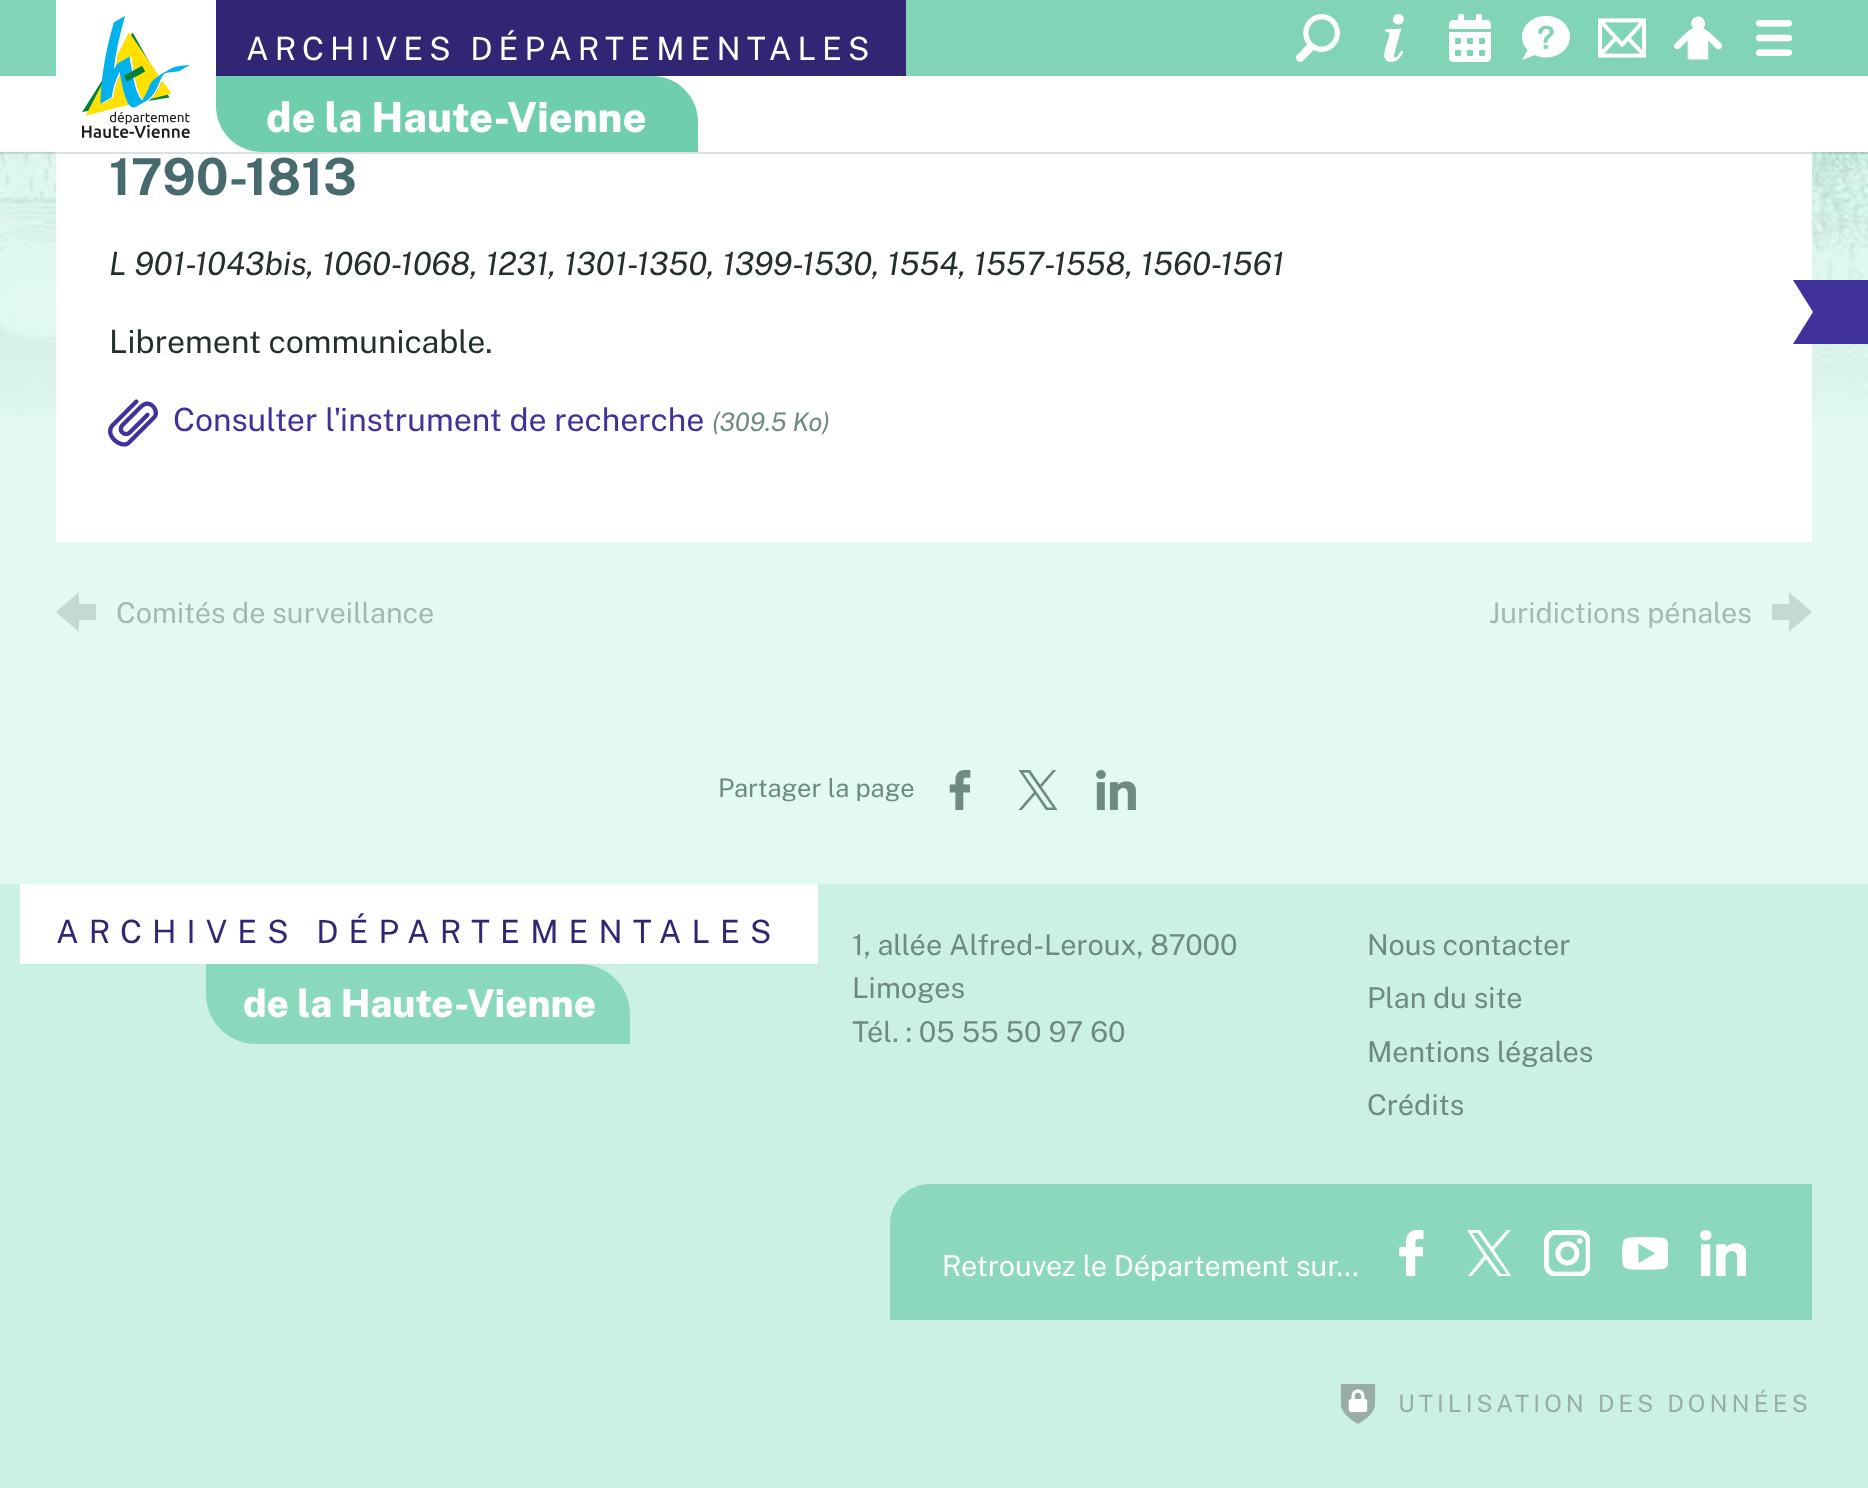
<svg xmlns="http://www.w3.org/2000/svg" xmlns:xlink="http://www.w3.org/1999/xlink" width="1868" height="1488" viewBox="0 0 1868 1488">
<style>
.cls-1{font:100 32px Public Sans;letter-spacing:6px;fill:#ffffff}
.cls-2{font:100 41.5px 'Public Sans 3';fill:#ffffff}
.cls-3{font:100 51px 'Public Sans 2';fill:#476a6f}
.cls-4{font:italic 100 32px Public Sans;fill:#252f2c}
.cls-5{font:100 32px Public Sans;fill:#252f2c}
.cls-6{font:100 32px Public Sans;fill:#41329b}
.cls-7{font:italic 100 25.5px Public Sans;fill:#6e8a81}
.cls-8{font:100 28.75px Public Sans;fill:#a6b8b2}
.cls-9{font:100 25.5px Public Sans;fill:#6e8a81}
.cls-10{font:100 32px Public Sans;letter-spacing:10px;fill:#312674}
.cls-11{font:100 38.5px 'Public Sans 3';fill:#ffffff}
.cls-12{font:100 28.75px Public Sans;fill:#6e8a81}
.cls-13{font:100 28.75px Public Sans;fill:#ffffff}
.cls-14{font:100 24px Public Sans;letter-spacing:4px;fill:#98ada6}
</style>
<defs>
<clipPath id="clip1"><rect x="1466" y="1230" width="46" height="46"/></clipPath>
</defs>
<rect width="100%" height="100%" fill="#e2faf2"/>
<image xlink:href="image0.png" x="0" y="152" width="1868" height="265"/>
<rect fill="#82d4b7" x="0" y="0" width="1868" height="76"/>
<rect fill="#ffffff" x="56" y="0" width="160" height="76"/>
<rect fill="#ffffff" x="0" y="76" width="1868" height="76"/>
<image xlink:href="image1.png" x="82" y="16" width="108" height="122"/>
<rect fill="#312674" x="216" y="0" width="690" height="76"/>
<image xlink:href="image2.png" x="1296" y="14" width="44" height="48"/>
<image xlink:href="image3.png" x="1384" y="14" width="20" height="48"/>
<image xlink:href="image4.png" x="1449" y="14" width="42" height="48"/>
<image xlink:href="image5.png" x="1522" y="15" width="48" height="45"/>
<image xlink:href="image6.png" x="1598" y="18" width="48" height="40"/>
<image xlink:href="image7.png" x="1674" y="16" width="48" height="44"/>
<path fill="#6fceac" d="M216 76H652C677.5 76 698 96.5 698 122V152H262C236.5 152 216 131.5 216 106Z"/>
<rect fill="#ffffff" x="56" y="152" width="1756" height="390"/>
<rect fill="#476a6f" fill-opacity="0.2" x="0" y="152" width="1868" height="2"/>
<image xlink:href="image8.png" x="1755" y="20" width="38" height="36"/>
<image xlink:href="image9.png" x="108" y="399" width="50" height="48"/>
<path fill="#c4d9d2" d="M79 620H96V604H79V592L56 612L79 632V620"/>
<path fill="#c4d9d2" d="M1789 620V632L1812 612L1789 592V604H1772V620H1789"/>
<path fill="#41329b" d="M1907 344H1793L1813 312L1793 280H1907Z"/>
<image xlink:href="image10.png" x="949" y="770" width="22" height="40"/>
<image xlink:href="image11.png" x="1018" y="770" width="40" height="40"/>
<image xlink:href="image12.png" x="1096" y="770" width="40" height="40"/>
<rect fill="#cbf1e4" x="0" y="884" width="1868" height="604"/>
<rect fill="#ffffff" x="20" y="884" width="798" height="80"/>
<path fill="#8bd9bd" d="M206 964H580C607.5 964 630 986.5 630 1014V1044H256C228.5 1044 206 1021.5 206 994Z"/>
<path fill="#8bd8bd" d="M930 1184H1812V1320H890V1224C890 1202 908 1184 930 1184Z"/>
<image xlink:href="image13.png" x="1399" y="1230" width="25" height="46"/>
<g clip-path="url(#clip1)">
<path fill="#ffffff" d="M1494 1250L1511 1230H1507L1492 1247L1480 1230H1467L1484 1256L1467 1277H1471L1486 1259L1499 1277H1512ZM1488 1256L1472 1233H1478L1507 1274H1501Z"/>
</g>
<image xlink:href="image14.png" x="1544" y="1230" width="46" height="46"/>
<image xlink:href="image15.png" x="1622" y="1237" width="46" height="33"/>
<image xlink:href="image16.png" x="1700" y="1230" width="46" height="46"/>
<image xlink:href="image17.png" x="1340" y="1384" width="36" height="40"/>
<text class="cls-1" x="246" y="60">ARCHIVES DÉPARTEMENTALES</text>
<text class="cls-2" x="266" y="132">de la Haute-Vienne</text>
<text class="cls-3" x="109" y="195">1790-1813</text>
<text class="cls-4" x="109" y="275">L 901-1043bis, 1060-1068, 1231, 1301-1350, 1399-1530, 1554, 1557-1558, 1560-1561</text>
<text class="cls-5" x="109" y="353">Librement communicable.</text>
<text class="cls-6" x="173" y="431">Consulter l'instrument de recherche</text>
<text class="cls-7" x="712" y="431">(309.5 Ko)</text>
<text class="cls-8" x="116" y="623">Comités de surveillance</text>
<text class="cls-8" x="1489" y="623">Juridictions pénales</text>
<text class="cls-9" x="718" y="797">Partager la page</text>
<text class="cls-10" x="56" y="943">ARCHIVES DÉPARTEMENTALES</text>
<text class="cls-11" x="243" y="1017">de la Haute-Vienne</text>
<text class="cls-12"><tspan x="852" y="955">1, allée Alfred-Leroux, 87000</tspan><tspan x="852" y="998">Limoges</tspan><tspan x="852" y="1042">Tél. : 05 55 50 97 60</tspan></text>
<text class="cls-12"><tspan x="1367" y="955">Nous contacter</tspan><tspan x="1367" y="1008">Plan du site</tspan><tspan x="1367" y="1062">Mentions légales</tspan><tspan x="1367" y="1115">Crédits</tspan></text>
<text class="cls-13" x="942" y="1276">Retrouvez le Département sur…</text>
<text class="cls-14" x="1398" y="1412">UTILISATION DES DONNÉES</text>
</svg>
